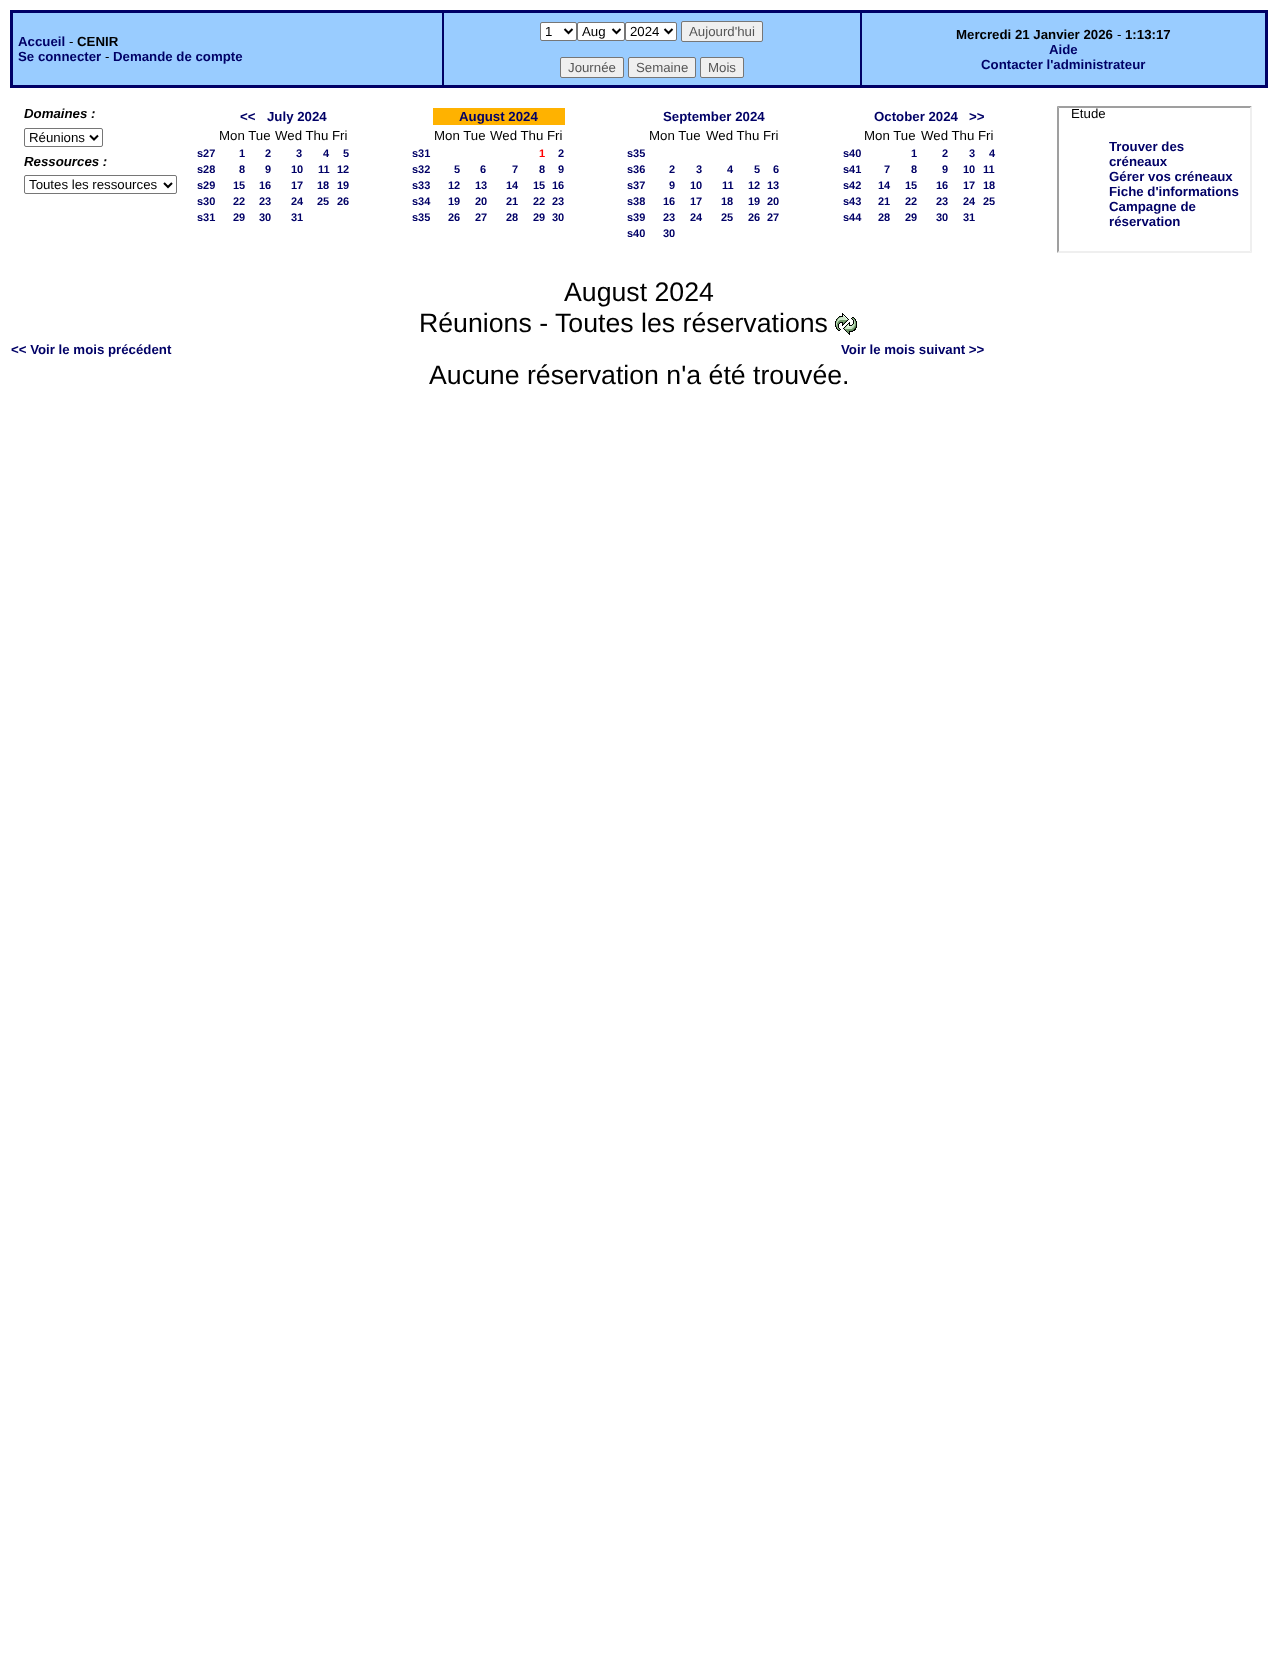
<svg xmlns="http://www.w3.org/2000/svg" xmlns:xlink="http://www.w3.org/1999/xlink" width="1278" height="1680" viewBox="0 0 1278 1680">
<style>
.cls-1{font:bold 13.25px Liberation Sans;fill:#000066}
.cls-2{font:13.25px Liberation Sans;fill:#000000}
.cls-3{font:bold 13.25px Liberation Sans;fill:#000000}
.cls-4{font:13.25px Liberation Sans;fill:#555555}
.cls-5{font:italic bold 13.25px Liberation Sans;fill:#000000}
.cls-6{font:bold 11px Liberation Sans;fill:#000066}
.cls-7{font:bold 11px Liberation Sans;fill:#ff0000}
.cls-8{font:26.7px Liberation Sans;fill:#000000}
</style>
<rect width="100%" height="100%" fill="#ffffff"/>
<rect fill="#000066" x="10" y="10" width="1258" height="78"/>
<rect fill="#99ccff" x="13" y="13" width="429" height="72"/>
<rect fill="#99ccff" x="444" y="13" width="416" height="72"/>
<rect fill="#ffffff" stroke="#767676" x="540.5" y="22.5" width="36" height="18" rx="1.5"/>
<path fill="none" stroke="#000000" stroke-width="2" d="M564.5 29L568.5 33L572.5 29"/>
<rect fill="#ffffff" stroke="#767676" x="577.5" y="22.5" width="47" height="18" rx="1.5"/>
<path fill="none" stroke="#000000" stroke-width="2" d="M612.5 29L616.5 33L620.5 29"/>
<rect fill="#ffffff" stroke="#767676" x="625.5" y="22.5" width="51" height="18" rx="1.5"/>
<path fill="none" stroke="#000000" stroke-width="2" d="M664.5 29L668.5 33L672.5 29"/>
<rect fill="#efefef" stroke="#767676" x="681.5" y="21.5" width="81" height="20" rx="1.5"/>
<rect fill="#efefef" stroke="#767676" x="560.5" y="57.5" width="63" height="20" rx="1.5"/>
<rect fill="#efefef" stroke="#767676" x="628.5" y="57.5" width="67" height="20" rx="1.5"/>
<rect fill="#efefef" stroke="#767676" x="700.5" y="57.5" width="43" height="20" rx="1.5"/>
<rect fill="#99ccff" x="862" y="13" width="403" height="72"/>
<rect fill="none" stroke="#767676" x="24.5" y="128.5" width="78" height="18" rx="1.5"/>
<path fill="none" stroke="#000000" stroke-width="2" d="M90 135.5L94 139.5L98 135.5"/>
<rect fill="none" stroke="#767676" x="24.5" y="175.5" width="152" height="18" rx="1.5"/>
<path fill="none" stroke="#000000" stroke-width="2" d="M164 183L168 187L172 183"/>
<rect fill="#ffb200" x="433" y="108" width="132" height="17"/>
<path fill="#9f9f9f" d="M1057 106H1252L1250 108H1059Z"/>
<path fill="#efefef" d="M1252 106V253L1250 251V108Z"/>
<path fill="#efefef" d="M1252 253H1057L1059 251H1250Z"/>
<path fill="#9f9f9f" d="M1057 253V106L1059 108V251Z"/>
<image xlink:href="image0.png" x="835" y="313" width="22" height="22"/>
<text class="cls-1" x="18" y="46">Accueil</text>
<text class="cls-2" x="69" y="46">-</text>
<text class="cls-3" x="77" y="46">CENIR</text>
<text class="cls-1" x="18" y="61">Se connecter</text>
<text class="cls-2" x="105" y="61">-</text>
<text class="cls-1" x="113" y="61">Demande de compte</text>
<text class="cls-2" x="545" y="36">1</text>
<text class="cls-2" x="582" y="36">Aug</text>
<text class="cls-2" x="630" y="36">2024</text>
<text class="cls-4" x="689" y="36">Aujourd'hui</text>
<text class="cls-4" x="568" y="72">Journée</text>
<text class="cls-4" x="636" y="72">Semaine</text>
<text class="cls-4" x="708" y="72">Mois</text>
<text class="cls-3" x="956" y="39">Mercredi 21 Janvier 2026</text>
<text class="cls-2" x="1117" y="39">-</text>
<text class="cls-3" x="1125" y="39">1:13:17</text>
<text class="cls-1" x="1049" y="54">Aide</text>
<text class="cls-1" x="981" y="69">Contacter l'administrateur</text>
<text class="cls-5" x="24" y="118">Domaines :</text>
<text class="cls-2" x="29" y="142">Réunions</text>
<text class="cls-5" x="24" y="166">Ressources :</text>
<text class="cls-2" x="29" y="189">Toutes les ressources</text>
<text class="cls-1" x="240" y="121">&lt;&lt;</text>
<text class="cls-1" x="267" y="121">July 2024</text>
<text class="cls-2" x="219" y="140">Mon Tue</text>
<text class="cls-2" x="275" y="140">Wed Thu Fri</text>
<text class="cls-6" x="197" y="157">s27</text>
<text class="cls-6" x="239" y="157">1</text>
<text class="cls-6" x="265" y="157">2</text>
<text class="cls-6" x="296" y="157">3</text>
<text class="cls-6" x="323" y="157">4</text>
<text class="cls-6" x="343" y="157">5</text>
<text class="cls-6" x="197" y="173">s28</text>
<text class="cls-6" x="239" y="173">8</text>
<text class="cls-6" x="265" y="173">9</text>
<text class="cls-6" x="291" y="173">10</text>
<text class="cls-6" x="318" y="173">11</text>
<text class="cls-6" x="337" y="173">12</text>
<text class="cls-6" x="197" y="189">s29</text>
<text class="cls-6" x="233" y="189">15</text>
<text class="cls-6" x="259" y="189">16</text>
<text class="cls-6" x="291" y="189">17</text>
<text class="cls-6" x="317" y="189">18</text>
<text class="cls-6" x="337" y="189">19</text>
<text class="cls-6" x="197" y="205">s30</text>
<text class="cls-6" x="233" y="205">22</text>
<text class="cls-6" x="259" y="205">23</text>
<text class="cls-6" x="291" y="205">24</text>
<text class="cls-6" x="317" y="205">25</text>
<text class="cls-6" x="337" y="205">26</text>
<text class="cls-6" x="197" y="221">s31</text>
<text class="cls-6" x="233" y="221">29</text>
<text class="cls-6" x="259" y="221">30</text>
<text class="cls-6" x="291" y="221">31</text>
<text class="cls-1" x="459" y="121">August 2024</text>
<text class="cls-2" x="434" y="140">Mon Tue</text>
<text class="cls-2" x="490" y="140">Wed Thu Fri</text>
<text class="cls-6" x="412" y="157">s31</text>
<text class="cls-7" x="539" y="157">1</text>
<text class="cls-6" x="558" y="157">2</text>
<text class="cls-6" x="412" y="173">s32</text>
<text class="cls-6" x="454" y="173">5</text>
<text class="cls-6" x="480" y="173">6</text>
<text class="cls-6" x="512" y="173">7</text>
<text class="cls-6" x="539" y="173">8</text>
<text class="cls-6" x="558" y="173">9</text>
<text class="cls-6" x="412" y="189">s33</text>
<text class="cls-6" x="448" y="189">12</text>
<text class="cls-6" x="475" y="189">13</text>
<text class="cls-6" x="506" y="189">14</text>
<text class="cls-6" x="533" y="189">15</text>
<text class="cls-6" x="552" y="189">16</text>
<text class="cls-6" x="412" y="205">s34</text>
<text class="cls-6" x="448" y="205">19</text>
<text class="cls-6" x="475" y="205">20</text>
<text class="cls-6" x="506" y="205">21</text>
<text class="cls-6" x="533" y="205">22</text>
<text class="cls-6" x="552" y="205">23</text>
<text class="cls-6" x="412" y="221">s35</text>
<text class="cls-6" x="448" y="221">26</text>
<text class="cls-6" x="475" y="221">27</text>
<text class="cls-6" x="506" y="221">28</text>
<text class="cls-6" x="533" y="221">29</text>
<text class="cls-6" x="552" y="221">30</text>
<text class="cls-1" x="663" y="121">September 2024</text>
<text class="cls-2" x="649" y="140">Mon Tue</text>
<text class="cls-2" x="706" y="140">Wed Thu Fri</text>
<text class="cls-6"><tspan x="627" y="157">s35</tspan><tspan x="627" y="173">s36</tspan></text>
<text class="cls-6" x="669" y="173">2</text>
<text class="cls-6" x="696" y="173">3</text>
<text class="cls-6" x="727" y="173">4</text>
<text class="cls-6" x="754" y="173">5</text>
<text class="cls-6" x="773" y="173">6</text>
<text class="cls-6" x="627" y="189">s37</text>
<text class="cls-6" x="669" y="189">9</text>
<text class="cls-6" x="690" y="189">10</text>
<text class="cls-6" x="722" y="189">11</text>
<text class="cls-6" x="748" y="189">12</text>
<text class="cls-6" x="767" y="189">13</text>
<text class="cls-6" x="627" y="205">s38</text>
<text class="cls-6" x="663" y="205">16</text>
<text class="cls-6" x="690" y="205">17</text>
<text class="cls-6" x="721" y="205">18</text>
<text class="cls-6" x="748" y="205">19</text>
<text class="cls-6" x="767" y="205">20</text>
<text class="cls-6" x="627" y="221">s39</text>
<text class="cls-6" x="663" y="221">23</text>
<text class="cls-6" x="690" y="221">24</text>
<text class="cls-6" x="721" y="221">25</text>
<text class="cls-6" x="748" y="221">26</text>
<text class="cls-6" x="767" y="221">27</text>
<text class="cls-6" x="627" y="237">s40</text>
<text class="cls-6" x="663" y="237">30</text>
<text class="cls-1" x="874" y="121">October 2024</text>
<text class="cls-1" x="969" y="121">&gt;&gt;</text>
<text class="cls-2" x="864" y="140">Mon Tue</text>
<text class="cls-2" x="921" y="140">Wed Thu Fri</text>
<text class="cls-6" x="843" y="157">s40</text>
<text class="cls-6" x="911" y="157">1</text>
<text class="cls-6" x="942" y="157">2</text>
<text class="cls-6" x="969" y="157">3</text>
<text class="cls-6" x="989" y="157">4</text>
<text class="cls-6" x="843" y="173">s41</text>
<text class="cls-6" x="884" y="173">7</text>
<text class="cls-6" x="911" y="173">8</text>
<text class="cls-6" x="942" y="173">9</text>
<text class="cls-6" x="963" y="173">10</text>
<text class="cls-6" x="983" y="173">11</text>
<text class="cls-6" x="843" y="189">s42</text>
<text class="cls-6" x="878" y="189">14</text>
<text class="cls-6" x="905" y="189">15</text>
<text class="cls-6" x="936" y="189">16</text>
<text class="cls-6" x="963" y="189">17</text>
<text class="cls-6" x="983" y="189">18</text>
<text class="cls-6" x="843" y="205">s43</text>
<text class="cls-6" x="878" y="205">21</text>
<text class="cls-6" x="905" y="205">22</text>
<text class="cls-6" x="936" y="205">23</text>
<text class="cls-6" x="963" y="205">24</text>
<text class="cls-6" x="983" y="205">25</text>
<text class="cls-6" x="843" y="221">s44</text>
<text class="cls-6" x="878" y="221">28</text>
<text class="cls-6" x="905" y="221">29</text>
<text class="cls-6" x="936" y="221">30</text>
<text class="cls-6" x="963" y="221">31</text>
<text class="cls-2" x="1071" y="118">Etude</text>
<text class="cls-1"><tspan x="1109" y="151">Trouver des</tspan><tspan x="1109" y="166">créneaux</tspan><tspan x="1109" y="181">Gérer vos créneaux</tspan><tspan x="1109" y="196">Fiche d'informations</tspan><tspan x="1109" y="211">Campagne de</tspan><tspan x="1109" y="226">réservation</tspan></text>
<text class="cls-8" x="564" y="301">August 2024</text>
<text class="cls-8" x="419" y="332">Réunions - Toutes les réservations</text>
<text class="cls-1" x="11" y="354">&lt;&lt; Voir le mois précédent</text>
<text class="cls-1" x="841" y="354">Voir le mois suivant &gt;&gt;</text>
<text class="cls-8" x="429" y="384">Aucune réservation n'a été trouvée.</text>
</svg>
